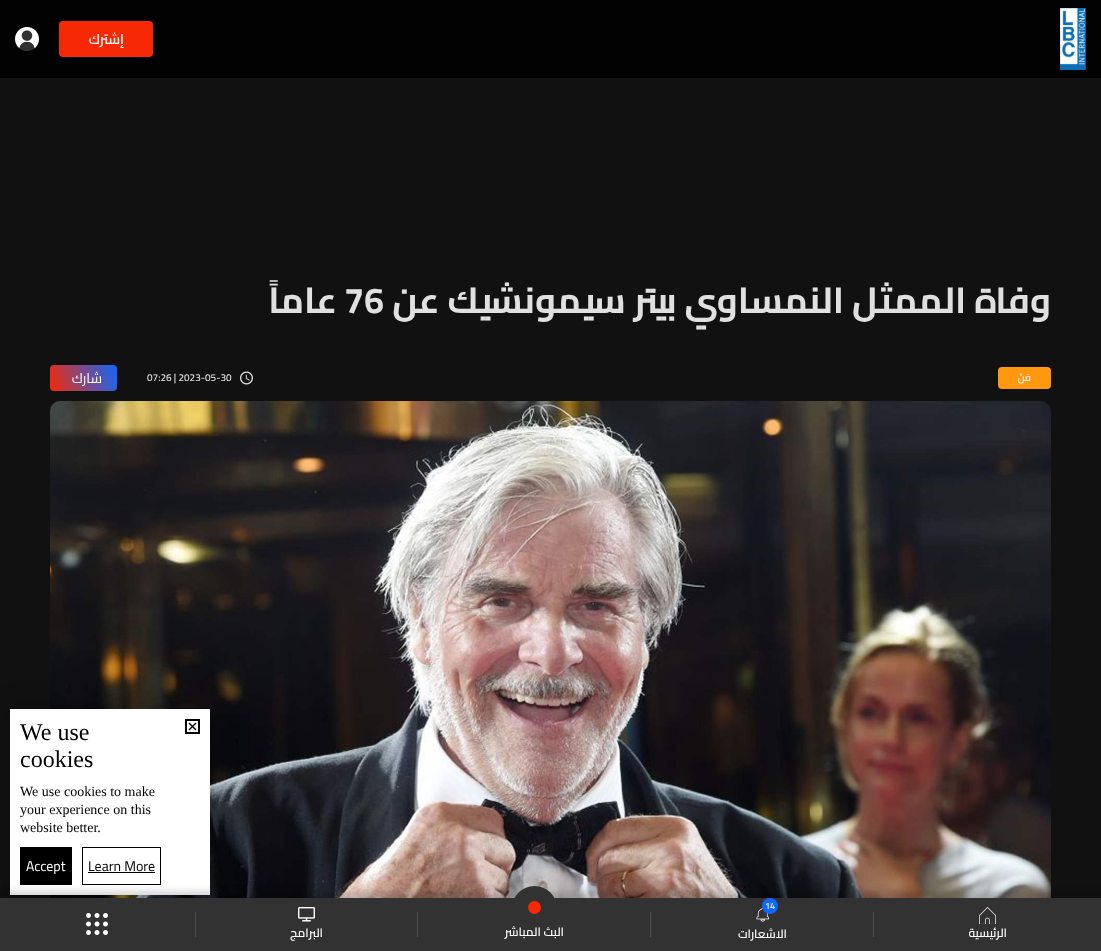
<svg xmlns="http://www.w3.org/2000/svg" xmlns:xlink="http://www.w3.org/1999/xlink" width="1101" height="951" viewBox="0 0 1101 951">
<style>
.cls-1{font:600 14px Cairo;direction:rtl;fill:#ffffff}
.cls-2{font:600 12px Cairo;direction:rtl;fill:#ffffff}
.cls-3{font:600 9px Cairo;fill:#ffffff}
.cls-4{font:bold 36px Cairo;direction:rtl;fill:#e0e0e0}
.cls-5{font:bold 36px Cairo;fill:#e0e0e0}
.cls-6{font:14px Cairo;direction:rtl;fill:#ffffff}
.cls-7{font:600 10px Cairo;fill:#e0e0e0}
.cls-8{font:600 10px Cairo;direction:rtl;fill:#ffffff}
.cls-9{font:24px Liberation Serif;fill:#000000}
.cls-10{font:14px Liberation Serif;fill:#000000}
.cls-11{font:14px Cairo;fill:#ffffff}
.cls-12{font:14px Cairo;fill:#000000}
</style>
<defs>
<linearGradient id="g1" gradientUnits="userSpaceOnUse" x1="117" y1="366" x2="50" y2="390"><stop offset="0" stop-color="#0e68fc"/><stop offset="1" stop-color="#f72805"/></linearGradient>
</defs>
<rect width="100%" height="100%" fill="#111111"/>
<rect fill="#020202" x="0" y="0" width="1101" height="78"/>
<image xlink:href="image0.png" x="15" y="27" width="24" height="24"/>
<rect fill="#f72805" x="59" y="21" width="94" height="36" rx="4"/>
<image xlink:href="image1.png" x="1060" y="8" width="26" height="62"/>
<image xlink:href="image7.png" x="50" y="401" width="1001" height="497"/>
<rect fill="#000000" fill-opacity="0.2" filter="blur(12px)" x="7" y="706" width="206" height="192"/>
<rect fill="#ffffff" x="10" y="709" width="200" height="186"/>
<rect fill="#000000" x="20" y="847" width="52" height="38"/>
<rect fill="none" stroke="#000000" x="82.5" y="847.5" width="78" height="37"/>
<rect fill="#000000" fill-opacity="0.16" filter="blur(3px)" x="0" y="891" width="1101" height="53"/>
<rect fill="#323232" x="0" y="898" width="1101" height="53"/>
<image xlink:href="image2.png" x="86" y="913" width="22" height="22"/>
<rect fill="#4d4d4d" x="195" y="912" width="1" height="25"/>
<image xlink:href="image3.png" x="298" y="907" width="17" height="15"/>
<rect fill="#4d4d4d" x="417" y="912" width="1" height="25"/>
<circle fill="#323232" cx="534.5" cy="908.5" r="22.5"/>
<circle fill="#f72805" cx="534.5" cy="907.5" r="6.5"/>
<rect fill="#4d4d4d" x="650" y="912" width="1" height="25"/>
<image xlink:href="image4.png" x="756" y="907" width="13" height="15"/>
<circle fill="#0e68fc" cx="770" cy="906" r="8"/>
<rect fill="#4d4d4d" x="873" y="912" width="1" height="25"/>
<image xlink:href="image5.png" x="979" y="907" width="17" height="17"/>
<rect fill="url(#g1)" x="50" y="365" width="67" height="26" rx="4"/>
<image xlink:href="image6.png" x="240" y="371" width="13" height="14"/>
<rect fill="#ff970f" x="998" y="367" width="53" height="22" rx="4"/>
<rect fill="none" stroke="#000000" stroke-width="2" x="186" y="720" width="13" height="13"/>
<path fill="#000000" d="M188.5 723.5L189.5 722.5L196.5 729.5L195.5 730.5Z"/>
<path fill="#000000" d="M195.5 722.5L196.5 723.5L189.5 730.5L188.5 729.5Z"/>
<rect fill="#000000" x="88" y="872" width="67" height="1"/>
<text class="cls-1" x="124" y="44">إشترك</text>
<text class="cls-2" x="323" y="937">البرامج</text>
<text class="cls-2" x="564" y="936">البث المباشر</text>
<text class="cls-3" x="765" y="909">14</text>
<text class="cls-2" x="787" y="938">الاشعارات</text>
<text class="cls-2" x="1007" y="937">الرئيسية</text>
<text class="cls-4" x="337" y="313">عاماً</text>
<text class="cls-5" x="344" y="313">76</text>
<text class="cls-4" x="1051" y="313">وفاة الممثل النمساوي بيتر سيمونشيك عن</text>
<text class="cls-6" x="102" y="383">شارك</text>
<text class="cls-7" x="147" y="381">07:26 | 2023-05-30</text>
<text class="cls-8" x="1031" y="381">فنّ</text>
<text class="cls-9"><tspan x="20" y="740">We use</tspan><tspan x="20" y="767">cookies</tspan></text>
<text class="cls-10"><tspan x="20" y="796">We use cookies to make</tspan><tspan x="20" y="814">your experience on this</tspan><tspan x="20" y="832">website better.</tspan></text>
<text class="cls-11" x="26" y="871">Accept</text>
<text class="cls-12" x="88" y="871">Learn More</text>
</svg>
